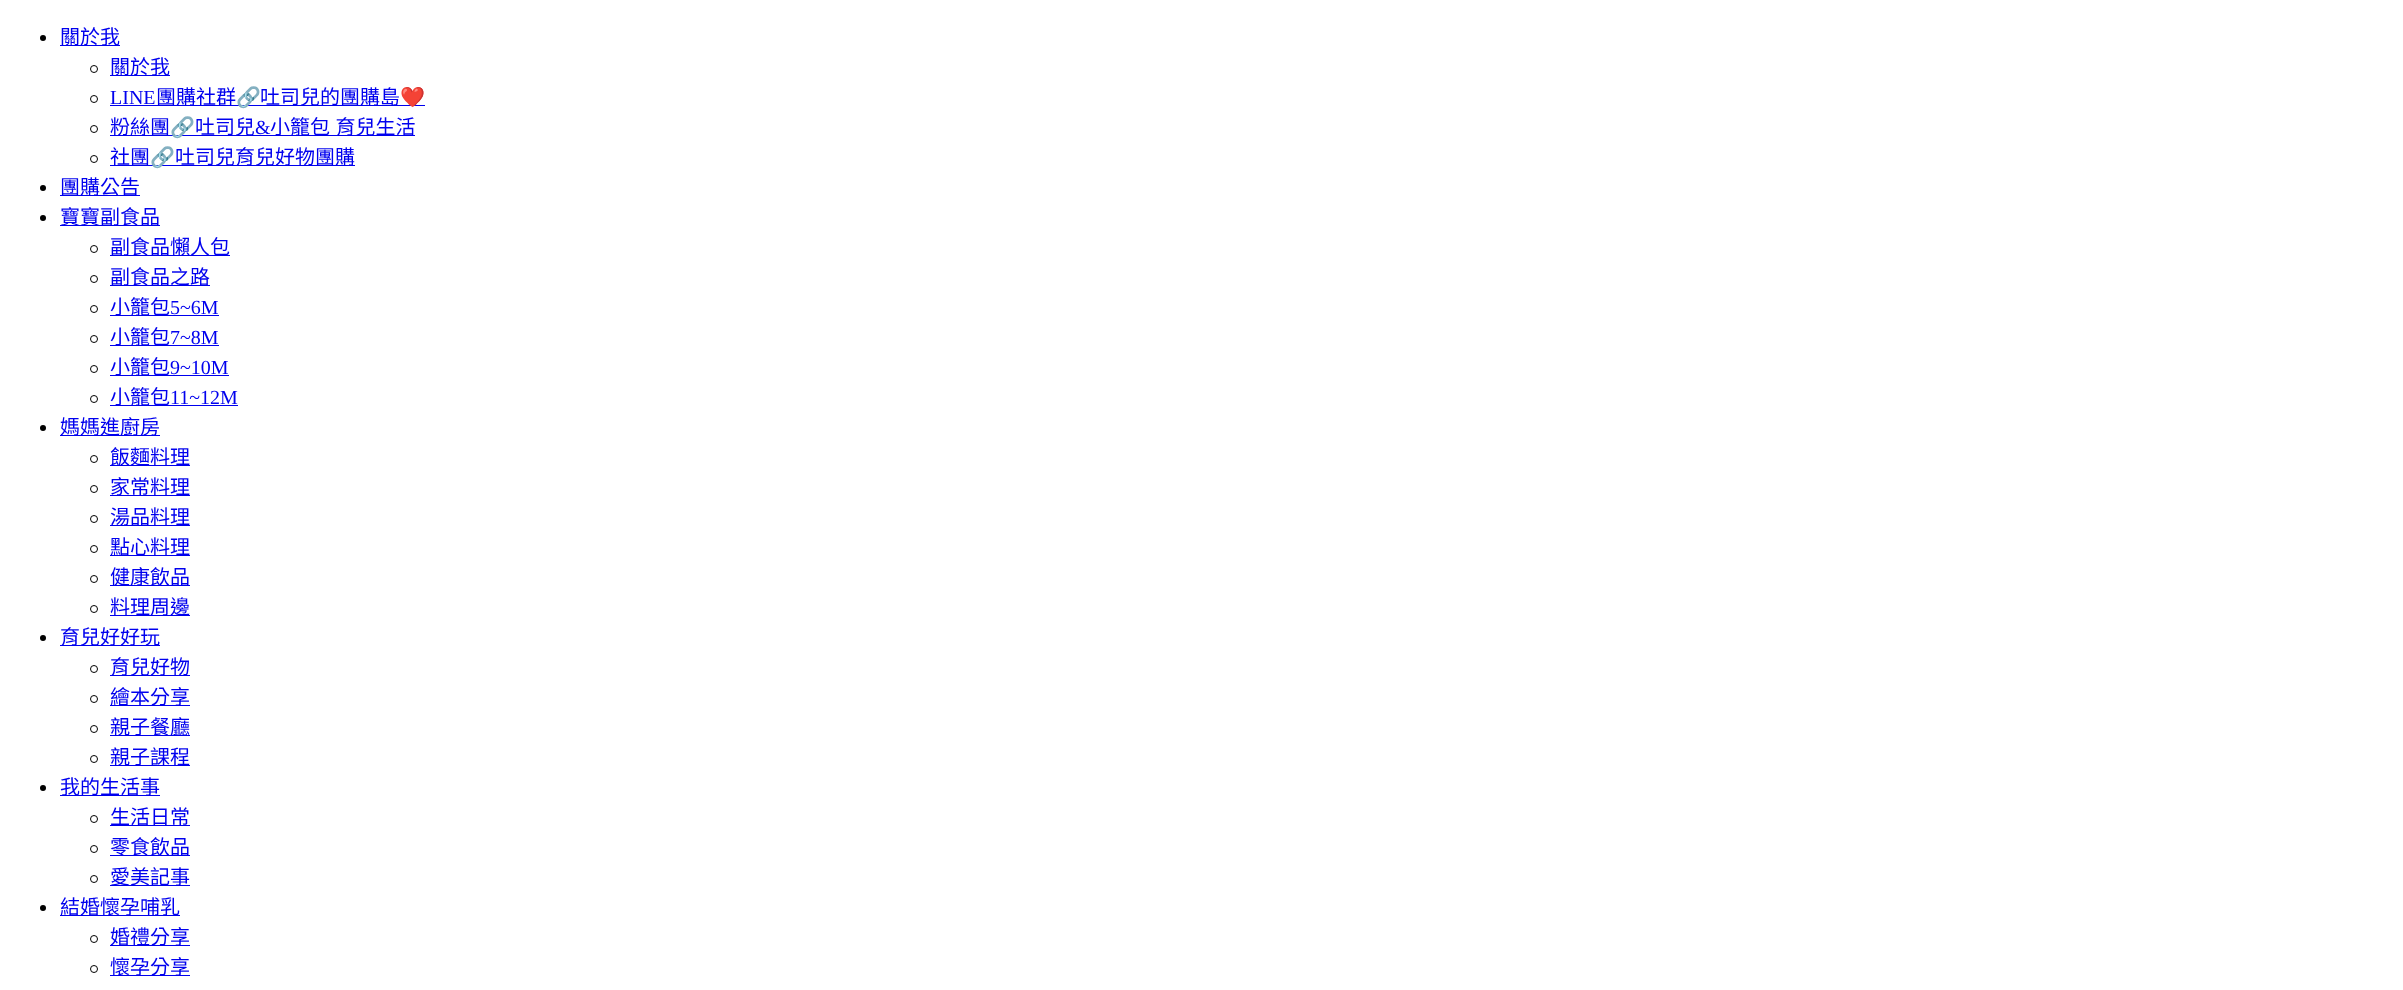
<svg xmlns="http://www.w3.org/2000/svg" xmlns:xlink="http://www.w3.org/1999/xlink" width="2403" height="990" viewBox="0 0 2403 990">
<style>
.cls-1{font:20px Noto Sans CJK TC;fill:#0000ee}
.cls-2{font:20px Liberation Serif;fill:#0000ee}
.cls-3{font:20px Noto Color Emoji;fill:#0000ee}
</style>
<rect width="100%" height="100%" fill="#ffffff"/>
<circle fill="#000000" cx="43" cy="38" r="3"/>
<rect fill="#0000ee" x="60" y="45" width="60" height="1"/>
<circle fill="none" stroke="#000000" cx="94" cy="69" r="3.5"/>
<rect fill="#0000ee" x="110" y="75" width="60" height="1"/>
<circle fill="none" stroke="#000000" cx="94" cy="99" r="3.5"/>
<rect fill="#0000ee" x="110" y="105" width="315" height="1"/>
<circle fill="none" stroke="#000000" cx="94" cy="129" r="3.5"/>
<rect fill="#0000ee" x="110" y="135" width="305" height="1"/>
<circle fill="none" stroke="#000000" cx="94" cy="159" r="3.5"/>
<rect fill="#0000ee" x="110" y="165" width="245" height="1"/>
<circle fill="#000000" cx="43" cy="188" r="3"/>
<rect fill="#0000ee" x="60" y="195" width="80" height="1"/>
<circle fill="#000000" cx="43" cy="218" r="3"/>
<rect fill="#0000ee" x="60" y="225" width="100" height="1"/>
<circle fill="none" stroke="#000000" cx="94" cy="249" r="3.5"/>
<rect fill="#0000ee" x="110" y="255" width="120" height="1"/>
<circle fill="none" stroke="#000000" cx="94" cy="279" r="3.5"/>
<rect fill="#0000ee" x="110" y="285" width="100" height="1"/>
<circle fill="none" stroke="#000000" cx="94" cy="309" r="3.5"/>
<rect fill="#0000ee" x="110" y="315" width="109" height="1"/>
<circle fill="none" stroke="#000000" cx="94" cy="339" r="3.5"/>
<rect fill="#0000ee" x="110" y="345" width="109" height="1"/>
<circle fill="none" stroke="#000000" cx="94" cy="369" r="3.5"/>
<rect fill="#0000ee" x="110" y="375" width="119" height="1"/>
<circle fill="none" stroke="#000000" cx="94" cy="399" r="3.5"/>
<rect fill="#0000ee" x="110" y="405" width="128" height="1"/>
<circle fill="#000000" cx="43" cy="428" r="3"/>
<rect fill="#0000ee" x="60" y="435" width="100" height="1"/>
<circle fill="none" stroke="#000000" cx="94" cy="459" r="3.5"/>
<rect fill="#0000ee" x="110" y="465" width="80" height="1"/>
<circle fill="none" stroke="#000000" cx="94" cy="489" r="3.5"/>
<rect fill="#0000ee" x="110" y="495" width="80" height="1"/>
<circle fill="none" stroke="#000000" cx="94" cy="519" r="3.5"/>
<rect fill="#0000ee" x="110" y="525" width="80" height="1"/>
<circle fill="none" stroke="#000000" cx="94" cy="549" r="3.5"/>
<rect fill="#0000ee" x="110" y="555" width="80" height="1"/>
<circle fill="none" stroke="#000000" cx="94" cy="579" r="3.5"/>
<rect fill="#0000ee" x="110" y="585" width="80" height="1"/>
<circle fill="none" stroke="#000000" cx="94" cy="609" r="3.5"/>
<rect fill="#0000ee" x="110" y="615" width="80" height="1"/>
<circle fill="#000000" cx="43" cy="638" r="3"/>
<rect fill="#0000ee" x="60" y="645" width="100" height="1"/>
<circle fill="none" stroke="#000000" cx="94" cy="669" r="3.5"/>
<rect fill="#0000ee" x="110" y="675" width="80" height="1"/>
<circle fill="none" stroke="#000000" cx="94" cy="699" r="3.5"/>
<rect fill="#0000ee" x="110" y="705" width="80" height="1"/>
<circle fill="none" stroke="#000000" cx="94" cy="729" r="3.5"/>
<rect fill="#0000ee" x="110" y="735" width="80" height="1"/>
<circle fill="none" stroke="#000000" cx="94" cy="759" r="3.5"/>
<rect fill="#0000ee" x="110" y="765" width="80" height="1"/>
<circle fill="#000000" cx="43" cy="788" r="3"/>
<rect fill="#0000ee" x="60" y="795" width="100" height="1"/>
<circle fill="none" stroke="#000000" cx="94" cy="819" r="3.5"/>
<rect fill="#0000ee" x="110" y="825" width="80" height="1"/>
<circle fill="none" stroke="#000000" cx="94" cy="849" r="3.5"/>
<rect fill="#0000ee" x="110" y="855" width="80" height="1"/>
<circle fill="none" stroke="#000000" cx="94" cy="879" r="3.5"/>
<rect fill="#0000ee" x="110" y="885" width="80" height="1"/>
<circle fill="#000000" cx="43" cy="908" r="3"/>
<rect fill="#0000ee" x="60" y="915" width="120" height="1"/>
<circle fill="none" stroke="#000000" cx="94" cy="939" r="3.5"/>
<rect fill="#0000ee" x="110" y="945" width="80" height="1"/>
<circle fill="none" stroke="#000000" cx="94" cy="969" r="3.5"/>
<rect fill="#0000ee" x="110" y="975" width="80" height="1"/>
<text class="cls-1" x="60" y="44">關於我</text>
<text class="cls-1" x="110" y="74">關於我</text>
<text class="cls-2" x="110" y="104">LINE</text>
<text class="cls-1" x="156" y="104">團購社群</text>
<text class="cls-3" x="236" y="104">🔗</text>
<text class="cls-1" x="260" y="104">吐司兒的團購島</text>
<text class="cls-3" x="400" y="104">❤️</text>
<text class="cls-1" x="110" y="134">粉絲團</text>
<text class="cls-3" x="170" y="134">🔗</text>
<text class="cls-1" x="195" y="134">吐司兒</text>
<text class="cls-2" x="255" y="134">&amp;</text>
<text class="cls-1" x="270" y="134" word-spacing="1">小籠包 育兒生活</text>
<text class="cls-1" x="110" y="164">社團</text>
<text class="cls-3" x="150" y="164">🔗</text>
<text class="cls-1" x="175" y="164">吐司兒育兒好物團購</text>
<text class="cls-1"><tspan x="60" y="194">團購公告</tspan><tspan x="60" y="224">寶寶副食品</tspan></text>
<text class="cls-1"><tspan x="110" y="254">副食品懶人包</tspan><tspan x="110" y="284">副食品之路</tspan><tspan x="110" y="314">小籠包</tspan></text>
<text class="cls-2" x="170" y="314">5~6M</text>
<text class="cls-1" x="110" y="344">小籠包</text>
<text class="cls-2" x="170" y="344">7~8M</text>
<text class="cls-1" x="110" y="374">小籠包</text>
<text class="cls-2" x="170" y="374">9~10M</text>
<text class="cls-1" x="110" y="404">小籠包</text>
<text class="cls-2" x="170" y="404">11~12M</text>
<text class="cls-1" x="60" y="434">媽媽進廚房</text>
<text class="cls-1"><tspan x="110" y="464">飯麵料理</tspan><tspan x="110" y="494">家常料理</tspan><tspan x="110" y="524">湯品料理</tspan><tspan x="110" y="554">點心料理</tspan><tspan x="110" y="584">健康飲品</tspan><tspan x="110" y="614">料理周邊</tspan></text>
<text class="cls-1" x="60" y="644">育兒好好玩</text>
<text class="cls-1"><tspan x="110" y="674">育兒好物</tspan><tspan x="110" y="704">繪本分享</tspan><tspan x="110" y="734">親子餐廳</tspan><tspan x="110" y="764">親子課程</tspan></text>
<text class="cls-1" x="60" y="794">我的生活事</text>
<text class="cls-1"><tspan x="110" y="824">生活日常</tspan><tspan x="110" y="854">零食飲品</tspan><tspan x="110" y="884">愛美記事</tspan></text>
<text class="cls-1" x="60" y="914">結婚懷孕哺乳</text>
<text class="cls-1"><tspan x="110" y="944">婚禮分享</tspan><tspan x="110" y="974">懷孕分享</tspan></text>
</svg>
